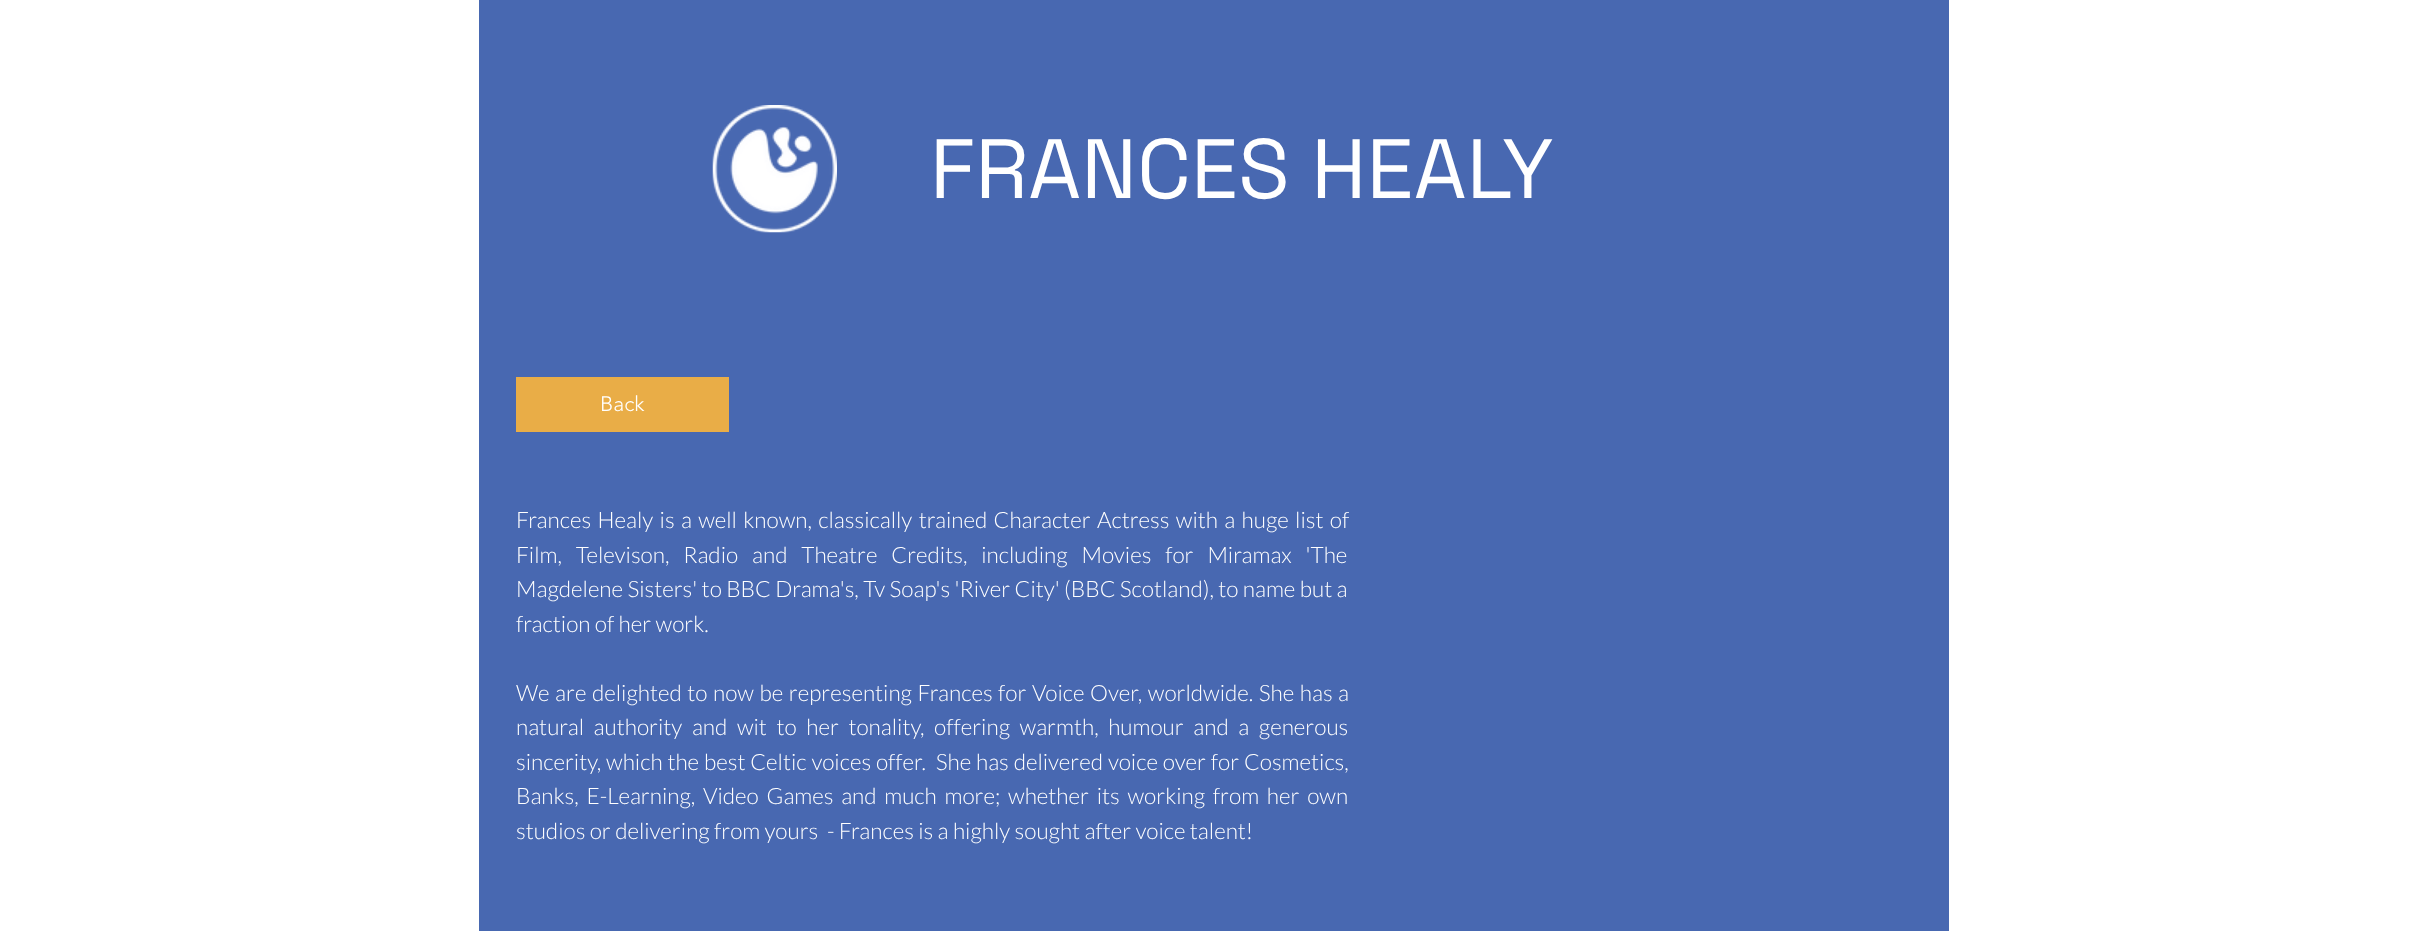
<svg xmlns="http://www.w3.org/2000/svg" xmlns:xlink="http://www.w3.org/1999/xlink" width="2426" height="931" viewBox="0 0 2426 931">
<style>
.cls-1{font:84px Space Grotesk;fill:#ffffff}
.cls-2{font:300 21px 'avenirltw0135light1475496';fill:#ffffff}
.cls-3{font:300 22.5px Lato;fill:#ffffff}
</style>
<rect width="100%" height="100%" fill="#ffffff"/>
<rect fill="#4868b1" x="479" y="0" width="1470" height="931"/>
<image xlink:href="image0.png" x="712" y="105" width="125" height="128"/>
<rect fill="#e9ad47" x="516" y="377" width="213" height="55"/>
<text class="cls-1" x="930" y="198">FRANCES HEALY</text>
<text class="cls-2" x="600" y="411">Back</text>
<text class="cls-3"><tspan x="516" y="528" word-spacing="2">Frances Healy is a well known, classically trained Character Actress with a huge list of</tspan><tspan x="516" y="563" word-spacing="9.5">Film, Televison, Radio and Theatre Credits, including Movies for Miramax 'The</tspan><tspan x="516" y="597">Magdelene Sisters' to BBC Drama's, Tv Soap's 'River City' (BBC Scotland), to name but a</tspan><tspan x="516" y="632">fraction of her work.</tspan></text>
<text class="cls-3" xml:space="preserve"><tspan x="516" y="701" word-spacing="1.2">We are delighted to now be representing Frances for Voice Over, worldwide. She has a</tspan><tspan x="516" y="735" word-spacing="5.25">natural authority and wit to her tonality, offering warmth, humour and a generous</tspan><tspan x="516" y="770" word-spacing="0.5">sincerity, which the best Celtic voices offer.  She has delivered voice over for Cosmetics,</tspan><tspan x="516" y="804" word-spacing="3.4">Banks, E-Learning, Video Games and much more; whether its working from her own</tspan><tspan x="516" y="839">studios or delivering from yours  - Frances is a highly sought after voice talent!</tspan></text>
</svg>
